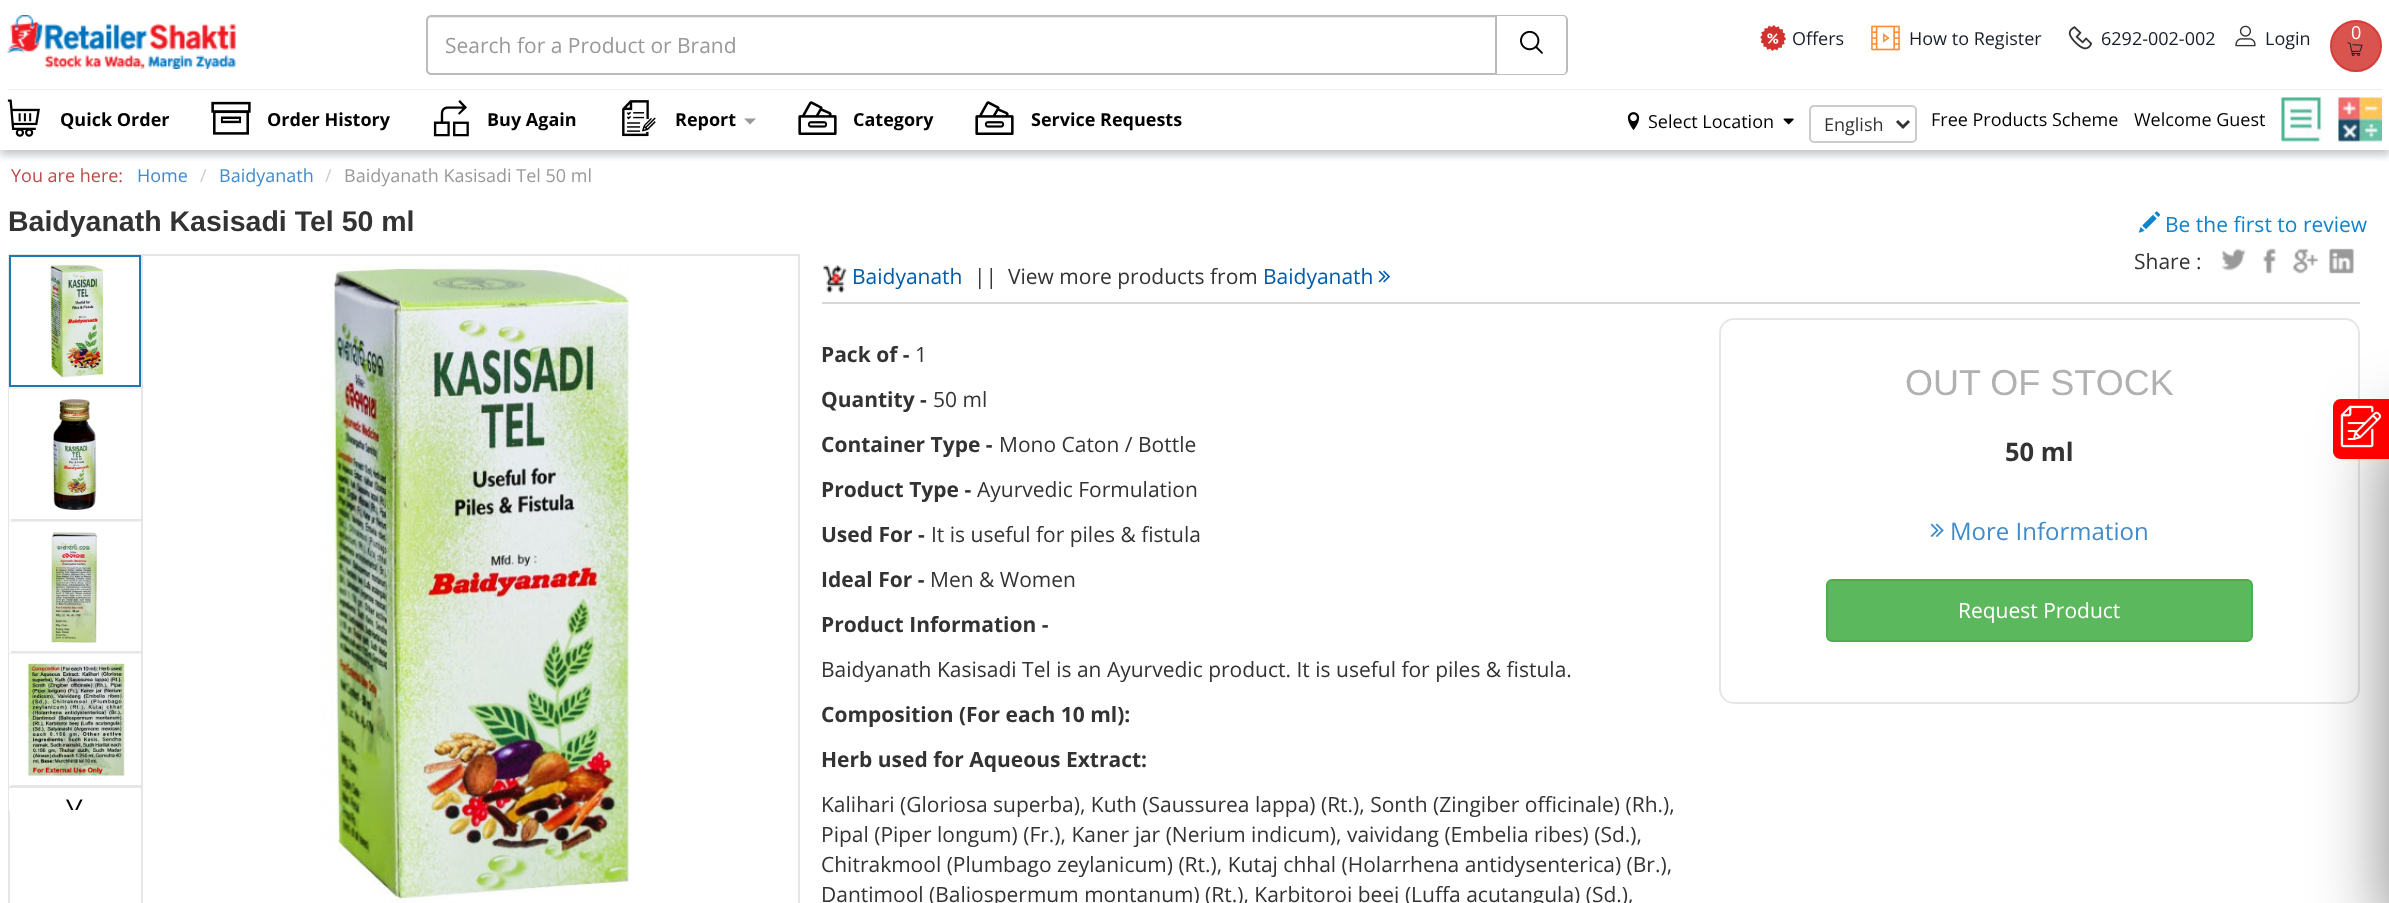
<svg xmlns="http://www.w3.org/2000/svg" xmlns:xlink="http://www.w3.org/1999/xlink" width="2389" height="903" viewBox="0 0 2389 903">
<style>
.cls-1{font:21px Open Sans;fill:#999999}
.cls-2{font:18px Open Sans;fill:#181e2a}
.cls-3{font:18px Open Sans;fill:#ffffff}
.cls-4{font:bold 18px Open Sans;fill:#000000}
.cls-5{font:18px Open Sans;fill:#000000}
.cls-6{font:18px Open Sans;fill:#333333}
.cls-7{font:18px Open Sans;fill:#b94a48}
.cls-8{font:18px Open Sans;fill:#428bca}
.cls-9{font:18px Open Sans;fill:#cccccc}
.cls-10{font:18px Open Sans;fill:#999999}
.cls-11{font:bold 28.5px Liberation Sans;fill:#333333}
.cls-12{font:21px Open Sans;fill:#0f84ce}
.cls-13{font:bold 33px Liberation Serif;fill:#000000}
.cls-14{font:21px Open Sans;fill:#333333}
.cls-15{font:21px Open Sans;fill:#005ca9}
.cls-16{font:bold 21px Open Sans;fill:#333333}
.cls-17{font:36px Liberation Sans;fill:#b1b1b1}
.cls-18{font:bold 25.5px Open Sans;fill:#333333}
.cls-19{font:24px Open Sans;fill:#428bca}
.cls-20{font:21px Open Sans;fill:#ffffff}
</style>
<defs>
<clipPath id="clip1"><rect x="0" y="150" width="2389" height="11"/></clipPath>
<clipPath id="clip2"><rect x="9" y="255" width="132" height="555"/></clipPath>
</defs>
<rect width="100%" height="100%" fill="#ffffff"/>
<g clip-path="url(#clip1)">
<rect fill="#393f48" fill-opacity="0.3" filter="blur(4px)" x="0" y="5" width="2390" height="150"/>
</g>
<rect fill="#eeeeee" x="8" y="89" width="2374" height="1"/>
<image xlink:href="image0.png" x="7" y="15" width="229" height="54"/>
<path fill="#ececec" d="M430 18H1496V17H431C429 17 428 19 428 21C428 19 429 18 430 18Z"/>
<path fill="none" stroke="#bcbcbc" stroke-width="2" d="M431 16H1496V74H431C429 74 427 72 427 70V20C427 18 429 16 431 16Z"/>
<path fill="#bcbcbc" fill-rule="evenodd" d="M1497 15H1563C1565 15 1568 17 1568 20V70C1568 73 1565 75 1563 75H1497ZM1497 16H1563C1565 16 1566 18 1566 20V70C1566 72 1565 74 1563 74H1497Z"/>
<image xlink:href="image1.png" x="1520" y="30" width="23" height="24"/>
<image xlink:href="image2.png" x="1760" y="25" width="27" height="26"/>
<image xlink:href="image3.png" x="1871" y="25" width="29" height="26"/>
<image xlink:href="image4.png" x="2068" y="26" width="24" height="24"/>
<image xlink:href="image5.png" x="2235" y="25" width="21" height="22"/>
<circle fill="#d9534f" stroke="#d43f3a" stroke-width="2" cx="2356" cy="46" r="25"/>
<image xlink:href="image6.png" x="2347" y="42" width="16" height="15"/>
<image xlink:href="image7.png" x="7" y="99" width="33" height="38"/>
<image xlink:href="image8.png" x="211" y="101" width="40" height="34"/>
<image xlink:href="image9.png" x="433" y="100" width="36" height="37"/>
<image xlink:href="image10.png" x="622" y="100" width="34" height="37"/>
<path fill="#999999" d="M744 118.5H756L750 124.5Z"/>
<image xlink:href="image11.png" x="798" y="101" width="39" height="34"/>
<image xlink:href="image11.png" x="975" y="101" width="39" height="34"/>
<image xlink:href="image12.png" x="1627" y="112" width="13" height="18"/>
<image xlink:href="image13.png" x="1783" y="118" width="11" height="7"/>
<rect fill="none" stroke="#cccccc" stroke-width="2" x="1810" y="106" width="106" height="36" rx="4"/>
<path fill="none" stroke="#333333" stroke-width="3" d="M1897 121L1903 127L1909 121"/>
<image xlink:href="image14.png" x="2280" y="97" width="44" height="45"/>
<image xlink:href="image15.png" x="2338" y="97" width="44" height="45"/>
<image xlink:href="image16.png" x="2138" y="211" width="23" height="22"/>
<rect fill="none" stroke="#e6e6e6" stroke-width="2" x="9" y="255" width="790" height="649"/>
<rect fill="#f1f1f1" x="9" y="387" width="132" height="2"/>
<rect fill="none" stroke="#1879b7" stroke-width="2" x="10" y="256" width="130" height="130"/>
<image xlink:href="image17.png" x="50" y="264" width="54" height="114"/>
<rect fill="#f1f1f1" x="9" y="521" width="132" height="1"/>
<rect fill="#ffffff" x="9" y="389" width="1" height="2"/>
<rect fill="#e6e6e6" x="9" y="519" width="132" height="2"/>
<rect fill="#ffffff" x="9" y="389" width="2" height="132"/>
<image xlink:href="image18.png" x="52" y="399" width="45" height="111"/>
<rect fill="#f1f1f1" x="9" y="653" width="132" height="1"/>
<rect fill="#ffffff" x="9" y="522" width="1" height="2"/>
<rect fill="#e6e6e6" x="9" y="651" width="132" height="2"/>
<rect fill="#ffffff" x="9" y="522" width="2" height="131"/>
<image xlink:href="image19.png" x="51" y="532" width="47" height="111"/>
<rect fill="#ffffff" x="9" y="654" width="1" height="2"/>
<rect fill="#e6e6e6" x="9" y="785" width="132" height="3"/>
<rect fill="#ffffff" x="9" y="654" width="2" height="132"/>
<image xlink:href="image20.png" x="27" y="663" width="98" height="113"/>
<rect fill="#ffffff" x="9" y="788" width="1" height="22"/>
<rect fill="#e6e6e6" x="141" y="255" width="2" height="648"/>
<image xlink:href="image21.png" x="321" y="263" width="309" height="640"/>
<image xlink:href="image22.png" x="2221" y="248" width="25" height="23"/>
<image xlink:href="image23.png" x="2263" y="248" width="13" height="26"/>
<image xlink:href="image24.png" x="2293" y="248" width="25" height="26"/>
<image xlink:href="image25.png" x="2329" y="248" width="25" height="26"/>
<rect fill="#d7d7d7" x="822" y="302" width="1538" height="2"/>
<image xlink:href="image26.png" x="823" y="264" width="24" height="29"/>
<image xlink:href="image27.png" x="1378" y="270" width="12" height="13"/>
<rect fill="none" stroke="#e6e6e6" stroke-width="2" x="1720" y="319" width="639" height="384" rx="14"/>
<image xlink:href="image28.png" x="1930" y="523" width="14" height="14"/>
<rect fill="#5cb85c" stroke="#4cae4c" stroke-width="2" x="1827" y="580" width="425" height="61" rx="5"/>
<rect fill="#000000" fill-opacity="0.5" filter="blur(37.5px)" x="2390" y="429" width="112" height="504"/>
<path fill="#ff0000" d="M2341 399H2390V459H2341C2336.5 459 2333 455.5 2333 451V407C2333 402.5 2336.5 399 2341 399Z"/>
<image xlink:href="image29.png" x="2340" y="405" width="42" height="43"/>
<text class="cls-1" x="445" y="53">Search for a Product or Brand</text>
<text class="cls-2" x="1792" y="45">Offers</text>
<text class="cls-2" x="1909" y="45">How to Register</text>
<text class="cls-2" x="2101" y="45">6292-002-002</text>
<text class="cls-2" x="2265" y="45">Login</text>
<text class="cls-3" x="2351" y="39">0</text>
<text class="cls-4" x="60" y="126">Quick Order</text>
<text class="cls-4" x="267" y="126">Order History</text>
<text class="cls-4" x="487" y="126">Buy Again</text>
<text class="cls-4" x="675" y="126">Report</text>
<text class="cls-4" x="853" y="126">Category</text>
<text class="cls-4" x="1031" y="126">Service Requests</text>
<text class="cls-5" x="1648" y="128">Select Location</text>
<text class="cls-6" x="1824" y="131">English</text>
<text class="cls-5" x="1931" y="126">Free Products Scheme</text>
<text class="cls-5" x="2134" y="126">Welcome Guest</text>
<text class="cls-7" x="11" y="182">You are here:</text>
<text class="cls-8" x="137" y="182">Home</text>
<text class="cls-9" x="200" y="182">/</text>
<text class="cls-8" x="219" y="182">Baidyanath</text>
<text class="cls-9" x="325" y="182">/</text>
<text class="cls-10" x="344" y="182">Baidyanath Kasisadi Tel 50 ml</text>
<text class="cls-11" x="8" y="231">Baidyanath Kasisadi Tel 50 ml</text>
<text class="cls-12" x="2165" y="232">Be the first to review</text>
<g clip-path="url(#clip2)">
<text class="cls-13" x="65" y="818">˅</text>
</g>
<text class="cls-14" x="2134" y="269">Share :</text>
<text class="cls-15" x="852" y="284">Baidyanath</text>
<text class="cls-14" xml:space="preserve" x="974" y="284">||  View more products from</text>
<text class="cls-15" x="1263" y="284">Baidyanath</text>
<text class="cls-16" x="821" y="362">Pack of -</text>
<text class="cls-14" x="915" y="362">1</text>
<text class="cls-16" x="821" y="407">Quantity -</text>
<text class="cls-14" x="933" y="407">50 ml</text>
<text class="cls-16" x="821" y="452">Container Type -</text>
<text class="cls-14" x="999" y="452">Mono Caton / Bottle</text>
<text class="cls-16" x="821" y="497">Product Type -</text>
<text class="cls-14" x="977" y="497">Ayurvedic Formulation</text>
<text class="cls-16" x="821" y="542">Used For -</text>
<text class="cls-14" x="931" y="542">It is useful for piles &amp; fistula</text>
<text class="cls-16" x="821" y="587">Ideal For -</text>
<text class="cls-14" x="930" y="587">Men &amp; Women</text>
<text class="cls-16" x="821" y="632">Product Information -</text>
<text class="cls-14" x="821" y="677">Baidyanath Kasisadi Tel is an Ayurvedic product. It is useful for piles &amp; fistula.</text>
<text class="cls-16" x="821" y="722">Composition (For each 10 ml):</text>
<text class="cls-16" x="821" y="767">Herb used for Aqueous Extract:</text>
<text class="cls-14"><tspan x="821" y="812">Kalihari (Gloriosa superba), Kuth (Saussurea lappa) (Rt.), Sonth (Zingiber officinale) (Rh.),</tspan><tspan x="821" y="842">Pipal (Piper longum) (Fr.), Kaner jar (Nerium indicum), vaividang (Embelia ribes) (Sd.),</tspan><tspan x="821" y="872">Chitrakmool (Plumbago zeylanicum) (Rt.), Kutaj chhal (Holarrhena antidysenterica) (Br.),</tspan><tspan x="821" y="902">Dantimool (Baliospermum montanum) (Rt.), Karbitoroi beej (Luffa acutangula) (Sd.),</tspan></text>
<text class="cls-17" x="1905" y="395">OUT OF STOCK</text>
<text class="cls-18" x="2005" y="461">50 ml</text>
<text class="cls-19" x="1950" y="540">More Information</text>
<text class="cls-20" x="1958" y="618">Request Product</text>
</svg>
